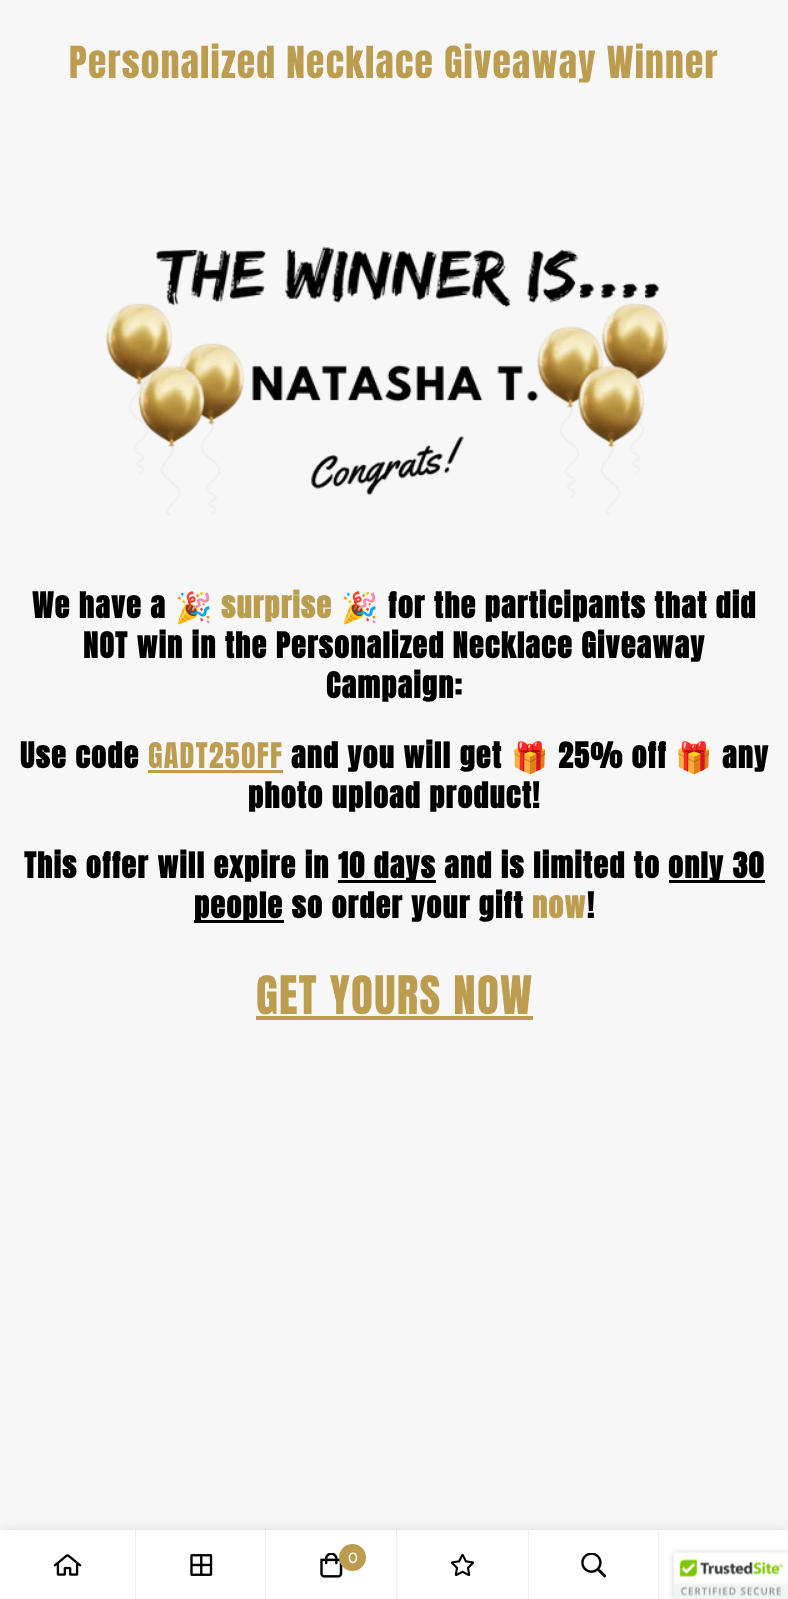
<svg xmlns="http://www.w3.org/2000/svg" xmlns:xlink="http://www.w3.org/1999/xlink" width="788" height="1599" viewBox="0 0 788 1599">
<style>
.cls-1{font:37.5px Anton;letter-spacing:1.25px;fill:#bc9c4f}
.cls-2{font:bold 30px Anton;letter-spacing:1.25px;fill:#000000}
.cls-3{font:bold 30px Noto Color Emoji;letter-spacing:1.25px;fill:#000000}
.cls-4{font:bold 30px Anton;letter-spacing:1.25px;fill:#bc9c4f}
.cls-5{font:30px Anton;letter-spacing:1.25px;fill:#bc9c4f}
.cls-6{font:45px Anton;letter-spacing:1.25px;fill:#bc9c4f}
.cls-7{font:15px Outfit;fill:#ffffff}
</style>
<rect width="100%" height="100%" fill="#f7f7f7"/>
<image xlink:href="image0.png" x="106" y="246" width="563" height="269"/>
<rect fill="#bc9c4f" x="148" y="770" width="135" height="3"/>
<rect fill="#000000" x="338" y="880" width="98" height="3"/>
<rect fill="#000000" x="669" y="880" width="96" height="3"/>
<rect fill="#000000" x="194" y="920" width="90" height="3"/>
<rect fill="#bc9c4f" x="256" y="1016" width="277" height="4"/>
<rect fill="#000000" fill-opacity="0.11" filter="blur(6px)" x="0" y="1530" width="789" height="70"/>
<rect fill="#ffffff" x="0" y="1530" width="788" height="69"/>
<rect fill="#eeeeee" x="135" y="1530" width="1" height="69"/>
<image xlink:href="image1.png" x="53" y="1554" width="29" height="22"/>
<rect fill="#eeeeee" x="265" y="1530" width="1" height="69"/>
<image xlink:href="image2.png" x="190" y="1554" width="23" height="22"/>
<rect fill="#eeeeee" x="396" y="1530" width="1" height="69"/>
<image xlink:href="image3.png" x="320" y="1553" width="23" height="25"/>
<circle fill="#bc9c4f" cx="352.5" cy="1557.5" r="13.5"/>
<rect fill="#eeeeee" x="528" y="1530" width="1" height="69"/>
<image xlink:href="image4.png" x="450" y="1553" width="25" height="24"/>
<rect fill="#eeeeee" x="658" y="1530" width="1" height="69"/>
<image xlink:href="image5.png" x="581" y="1553" width="25" height="25"/>
<rect fill="#000000" fill-opacity="0.2" filter="blur(3px)" x="674" y="1553" width="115" height="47" rx="2.5"/>
<image xlink:href="image6.png" x="673" y="1552" width="115" height="47"/>
<text class="cls-1" x="69" y="78">Personalized Necklace Giveaway Winner</text>
<text class="cls-2" x="32" y="618">We have a</text>
<text class="cls-3" x="175" y="618">🎉</text>
<text class="cls-4" x="221" y="618">surprise</text>
<text class="cls-3" x="341" y="618">🎉</text>
<text class="cls-2" x="388" y="618">for the participants that did</text>
<text class="cls-2" x="83" y="658">NOT win in the Personalized Necklace Giveaway</text>
<text class="cls-2" x="326" y="698">Campaign:</text>
<text class="cls-2" x="20" y="768">Use code</text>
<text class="cls-5" x="148" y="768">GADT25OFF</text>
<text class="cls-2" x="291" y="768">and you will get</text>
<text class="cls-3" x="511" y="768">🎁</text>
<text class="cls-2" x="558" y="768">25% off</text>
<text class="cls-3" x="675" y="768">🎁</text>
<text class="cls-2" x="722" y="768">any</text>
<text class="cls-2" x="248" y="808">photo upload product!</text>
<text class="cls-2" x="24" y="878">This offer will expire in</text>
<text class="cls-2" x="338" y="878">10 days and is limited to</text>
<text class="cls-2" x="668" y="878">only 30</text>
<text class="cls-2" x="194" y="918">people so order your gift</text>
<text class="cls-4" x="532" y="918">now</text>
<text class="cls-2" x="587" y="918">!</text>
<text class="cls-6" x="256" y="1014">GET YOURS NOW</text>
<text class="cls-7" x="348" y="1563">0</text>
</svg>
